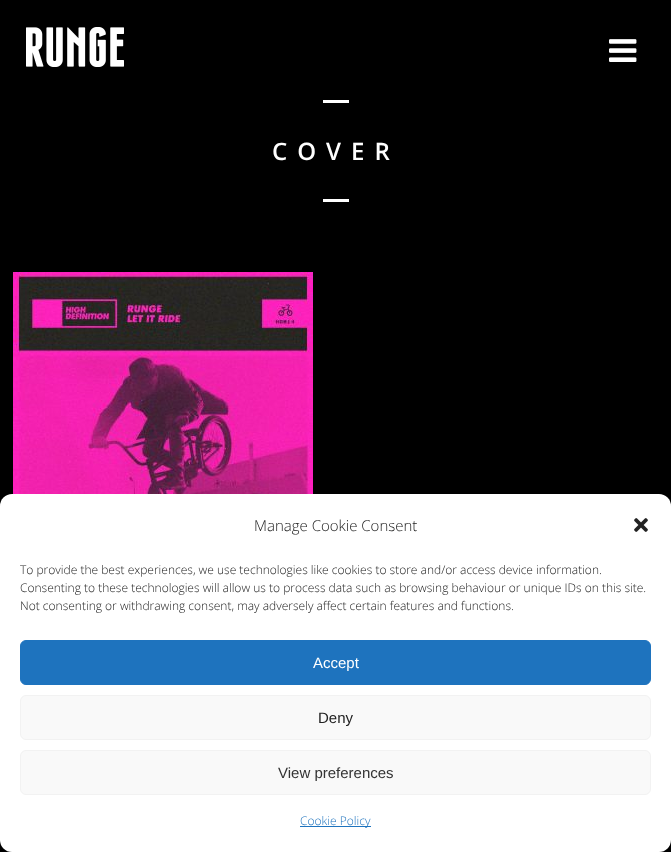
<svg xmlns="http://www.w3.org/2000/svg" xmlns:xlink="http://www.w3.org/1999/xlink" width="671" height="852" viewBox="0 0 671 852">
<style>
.cls-1{font:600 24px Open Sans;letter-spacing:10px;fill:#ffffff}
.cls-2{font:300 15px Open Sans;fill:#222222}
.cls-3{font:300 12px Open Sans;fill:#222222}
.cls-4{font:15px Liberation Sans;fill:#ffffff}
.cls-5{font:15px Liberation Sans;fill:#222222}
.cls-6{font:15px Liberation Sans;fill:#333333}
.cls-7{font:300 12px Open Sans;fill:#1e73be}
</style>
<rect width="100%" height="100%" fill="#000000"/>
<image xlink:href="image0.png" x="26" y="27" width="98" height="40"/>
<image xlink:href="image1.png" x="609" y="39" width="28" height="23"/>
<rect fill="#ffffff" x="323" y="100" width="26" height="3"/>
<rect fill="#ffffff" x="323" y="199" width="26" height="3"/>
<image xlink:href="image2.png" x="13" y="272" width="300" height="222"/>
<rect fill="#ffffff" x="0" y="494" width="671" height="358" rx="12"/>
<image xlink:href="image3.png" x="634" y="518" width="14" height="14"/>
<rect fill="#1e73be" stroke="#1e73be" x="20.5" y="640.5" width="630" height="44" rx="5.5"/>
<rect fill="#f9f9f9" stroke="#f2f2f2" x="20.5" y="695.5" width="630" height="44" rx="5.5"/>
<rect fill="#f9f9f9" stroke="#f2f2f2" x="20.5" y="750.5" width="630" height="44" rx="5.5"/>
<rect fill="#1e73be" x="300" y="826" width="71" height="1"/>
<text class="cls-1" x="272" y="160">COVER</text>
<text class="cls-2" x="254" y="531">Manage Cookie Consent</text>
<text class="cls-3"><tspan x="20" y="574">To provide the best experiences, we use technologies like cookies to store and/or access device information.</tspan><tspan x="20" y="592">Consenting to these technologies will allow us to process data such as browsing behaviour or unique IDs on this site.</tspan><tspan x="20" y="610">Not consenting or withdrawing consent, may adversely affect certain features and functions.</tspan></text>
<text class="cls-4" x="313" y="668">Accept</text>
<text class="cls-5" x="318" y="723">Deny</text>
<text class="cls-6" x="278" y="778">View preferences</text>
<text class="cls-7" x="300" y="825">Cookie Policy</text>
</svg>
